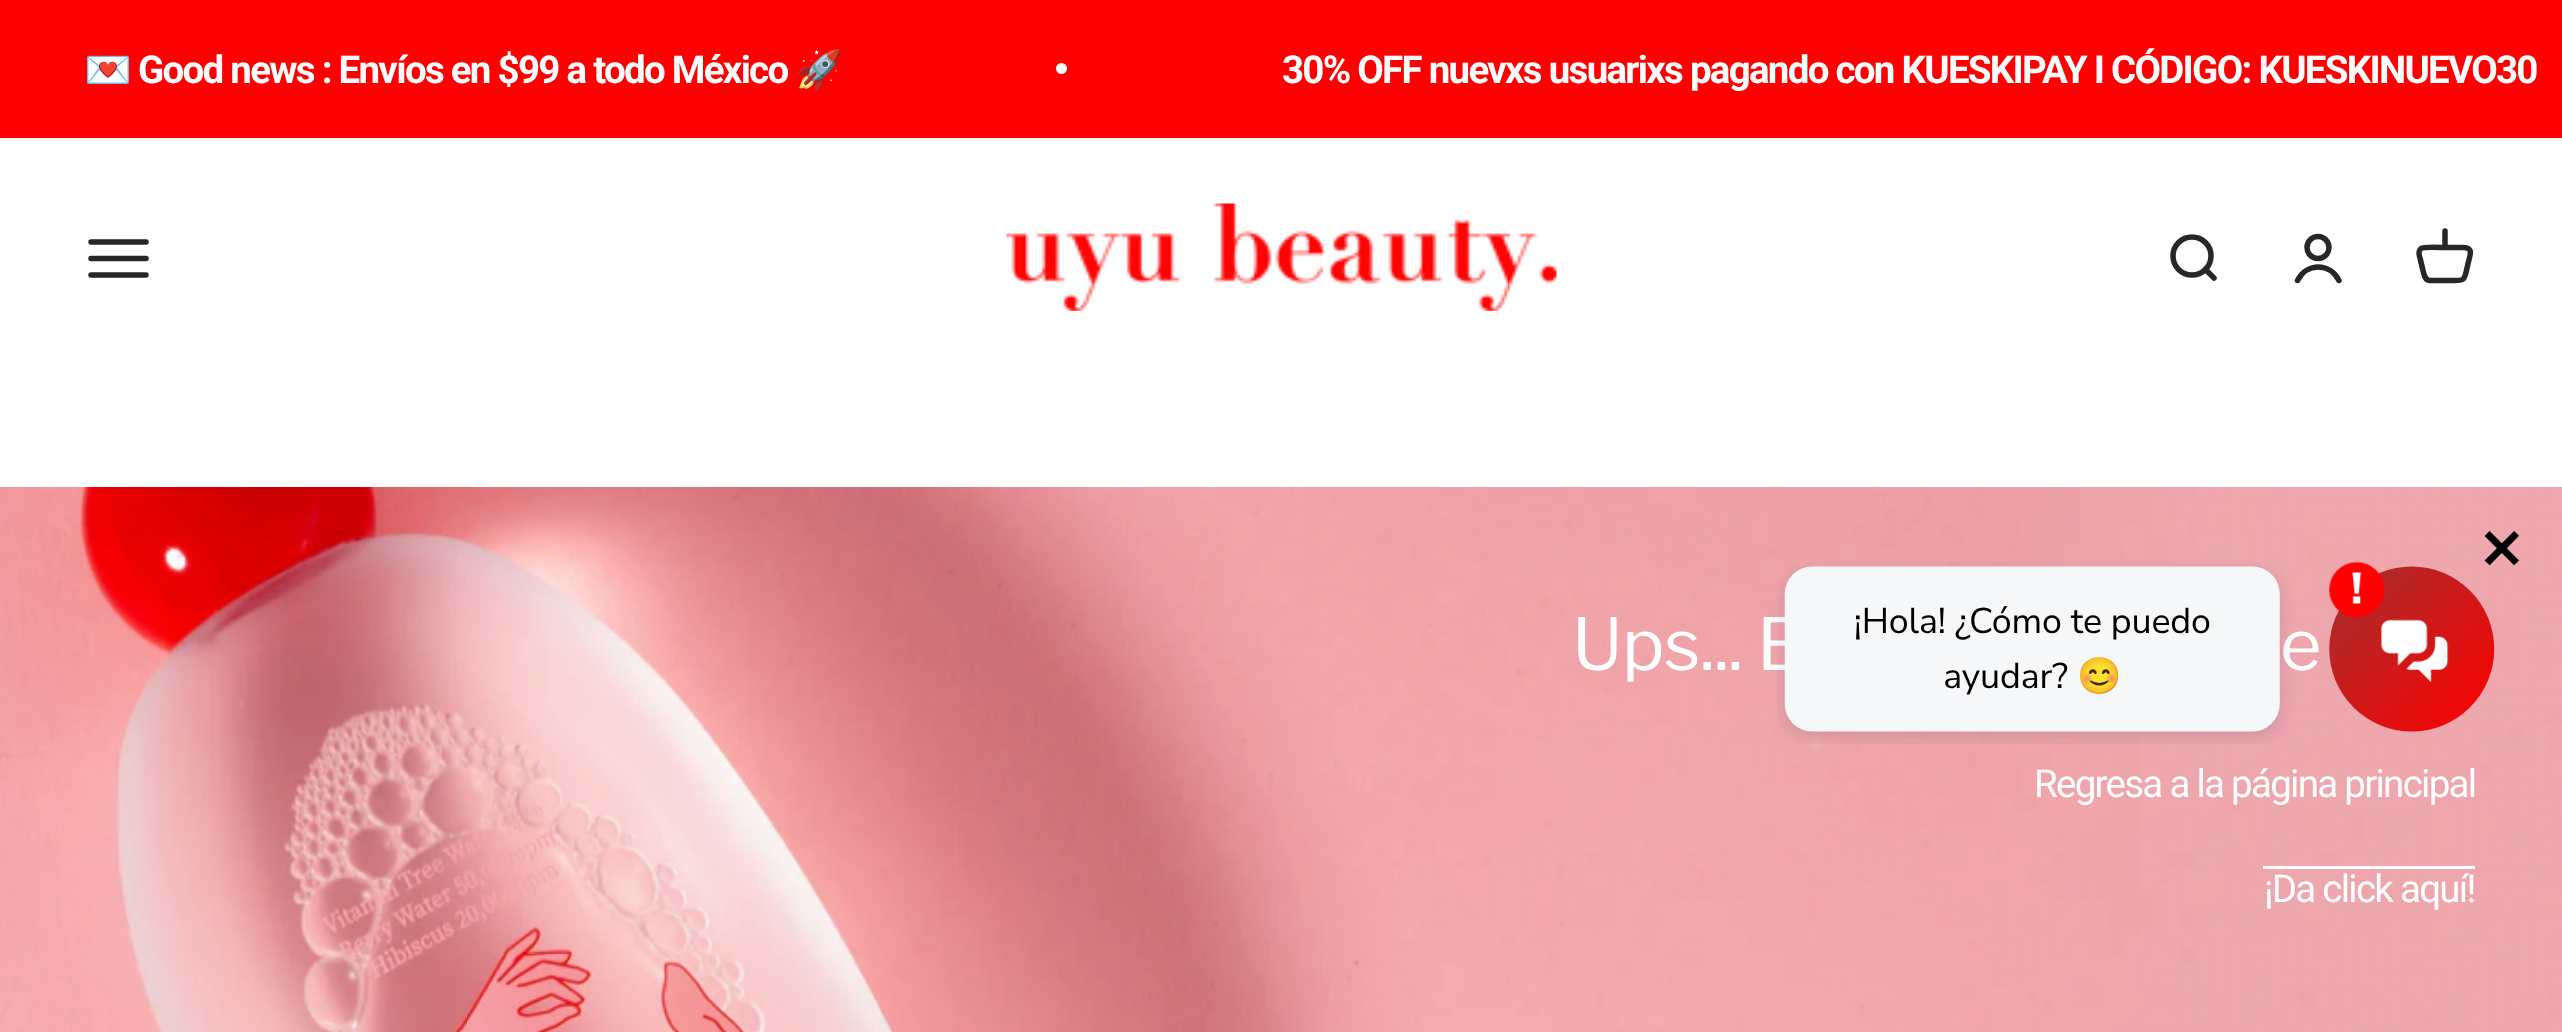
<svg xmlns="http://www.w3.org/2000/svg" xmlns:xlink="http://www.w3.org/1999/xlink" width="2562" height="1032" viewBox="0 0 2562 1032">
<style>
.cls-1{font:bold 38.5px Noto Color Emoji;letter-spacing:-1.73px;fill:#ffffff}
.cls-2{font:bold 38.5px Roboto;letter-spacing:-1.73px;fill:#ffffff}
.cls-3{font:bold 55px DejaVu Sans;letter-spacing:-1.73px;fill:#000000}
.cls-4{font:71.5px Libre Franklin;letter-spacing:-0.75px;fill:#ffffff}
.cls-5{font:38.5px Roboto;letter-spacing:-1.73px;fill:#ffffff}
</style>
<rect width="100%" height="100%" fill="#ffffff"/>
<rect fill="#ff0000" x="0" y="0" width="2562" height="138"/>
<circle fill="#ffffff" cx="1061.5" cy="68.5" r="5.5"/>
<path fill="none" stroke="#272727" stroke-width="5.5" stroke-linecap="round" d="M91 242H146M91 258.5H146M91 275H146"/>
<image xlink:href="image0.png" x="1006" y="203" width="551" height="108"/>
<circle fill="none" stroke="#272727" stroke-width="5.5" cx="2192" cy="256" r="19"/>
<path fill="none" stroke="#272727" stroke-width="5.5" stroke-linecap="round" stroke-linejoin="round" d="M2205.5 269.5L2214 278"/>
<circle fill="none" stroke="#272727" stroke-width="5.5" cx="2318" cy="247.5" r="11"/>
<path fill="none" stroke="#272727" stroke-width="5.5" stroke-linecap="round" d="M2297.5 280.5C2306.5 262.5 2330 262.5 2339 280.5"/>
<path fill="none" stroke="#272727" stroke-width="5.5" stroke-linecap="round" stroke-linejoin="round" d="M2445 247.5C2440.5 247.5 2424 246.5 2421 248.5C2418 251 2419 255 2420 258L2423.5 272.5C2424.5 276.5 2425.5 280.5 2430 280.5H2454.5C2462.5 280.5 2464 280.5 2466 272.5L2468.5 261.5C2471 252.5 2473 247.5 2462 247.5ZM2445 247.5V231"/>
<image xlink:href="image2.png" x="0" y="487" width="2562" height="545"/>
<rect fill="#ffffff" x="2263" y="866" width="212" height="3"/>
<text class="cls-1" x="84" y="83">💌</text>
<text class="cls-2" x="138" y="83">Good news : Envíos en $99 a todo México</text>
<text class="cls-1" x="795" y="83">🚀</text>
<text class="cls-2" x="1282" y="83">30% OFF nuevxs usuarixs pagando con KUESKIPAY I CÓDIGO: KUESKINUEVO30</text>
<text class="cls-3" x="2478" y="569">✕</text>
<text class="cls-4" x="1572" y="670">Ups... E</text>
<text class="cls-4" x="2280" y="670">e</text>
<image xlink:href="image1.png" x="1777" y="561" width="718" height="183"/>
<text class="cls-5" x="2034" y="797">Regresa a la página principal</text>
<text class="cls-5" x="2264" y="902">¡Da click aquí!</text>
</svg>
